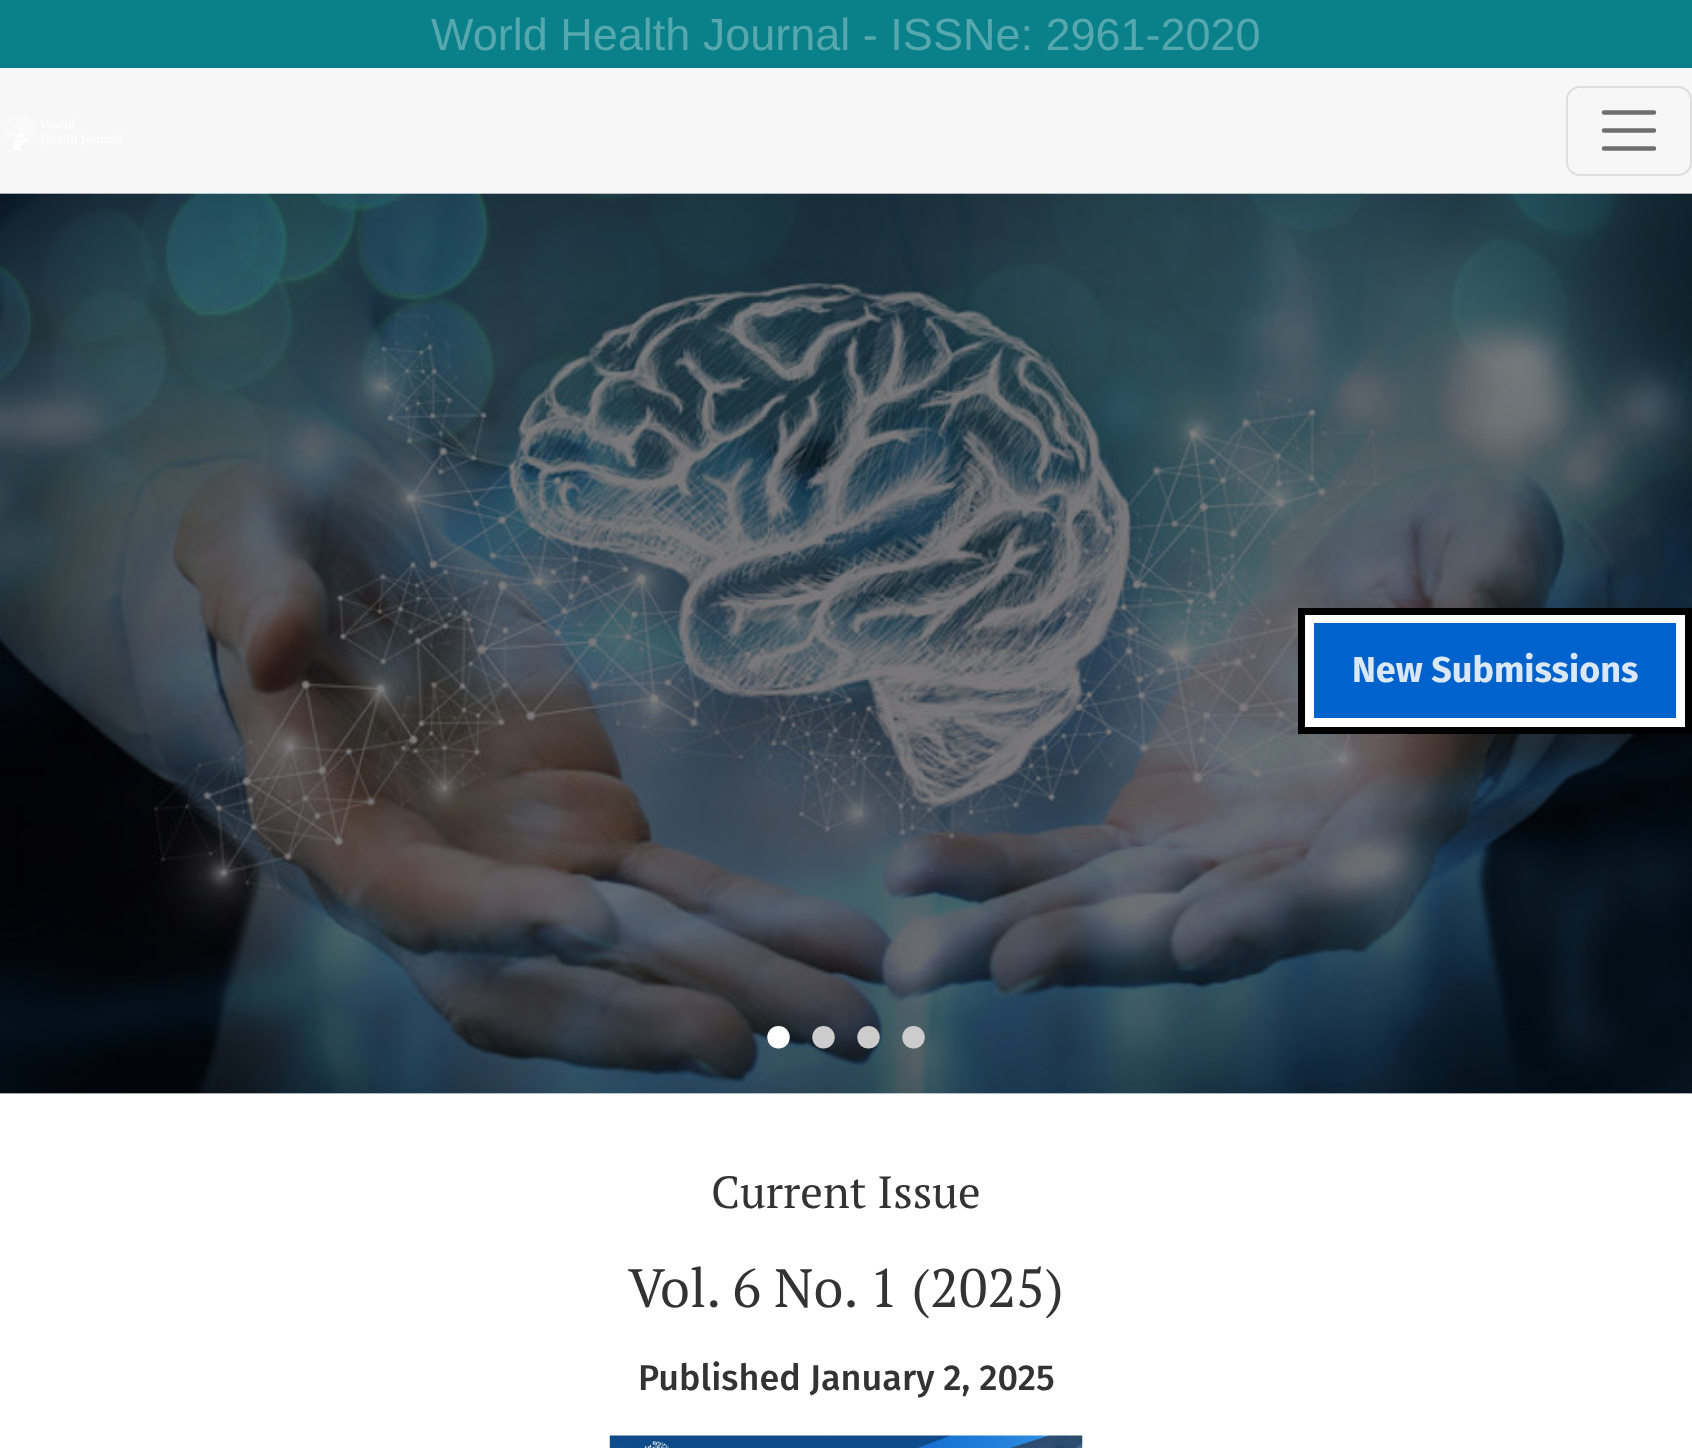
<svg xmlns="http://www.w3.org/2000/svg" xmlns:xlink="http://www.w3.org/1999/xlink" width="1692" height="1448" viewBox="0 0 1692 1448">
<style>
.cls-1{font:45px Liberation Sans;fill:#56a8ae}
.cls-2{font:bold 36px Fira Sans;fill:#d9e7f7}
.cls-3{font:45px PT Serif;fill:#333333}
.cls-4{font:54px PT Serif;fill:#333333}
.cls-5{font:500 36px Fira Sans;fill:#333333}
</style>
<rect width="100%" height="100%" fill="#ffffff"/>
<rect fill="#f7f7f7" x="0" y="68" width="1692" height="1026"/>
<rect fill="#0a818a" x="0" y="0" width="1692" height="68"/>
<image xlink:href="image0.png" x="0" y="114" width="121" height="37"/>
<rect fill="none" stroke="#dedede" stroke-width="2" x="1567" y="87" width="124" height="88" rx="13"/>
<path fill="none" stroke="#6f6f6f" stroke-width="4.5" stroke-linecap="round" d="M1604 112.5H1654M1604 130.5H1654M1604 148.5H1654"/>
<image xlink:href="image1.png" x="0" y="193" width="1692" height="901"/>
<rect fill="#ffffff" stroke="#000000" stroke-width="7" x="1301.5" y="611.5" width="387" height="119"/>
<rect fill="#0062cc" x="1314" y="623" width="362" height="95"/>
<image xlink:href="image2.png" x="609" y="1435" width="474" height="13"/>
<text class="cls-1" x="431" y="50">World Health Journal - ISSNe: 2961-2020</text>
<text class="cls-2" x="1352" y="682">New Submissions</text>
<text class="cls-3" x="711" y="1208">Current Issue</text>
<text class="cls-4" x="628" y="1307">Vol. 6 No. 1 (2025)</text>
<text class="cls-5" x="638" y="1390">Published January 2, 2025</text>
</svg>
